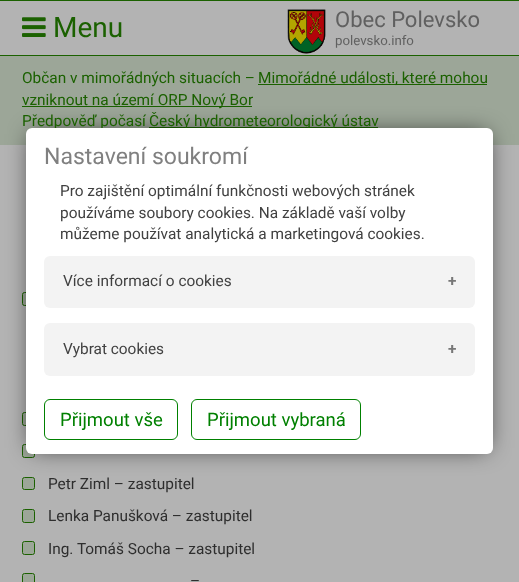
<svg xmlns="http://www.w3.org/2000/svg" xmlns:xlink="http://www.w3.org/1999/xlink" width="519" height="582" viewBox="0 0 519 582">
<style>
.cls-1{font:28px Roboto;fill:#1b6100}
.cls-2{font:22px Roboto;fill:#606060}
.cls-3{font:13.25px Roboto;fill:#606060}
.cls-4{font:15.4px Roboto;fill:#1b6100}
.cls-5{font:15.4px Roboto;fill:#2e2e2e}
.cls-6{font:23px Roboto;fill:#808080}
.cls-7{font:15.4px Roboto;fill:#414141}
.cls-8{font:bold 15.4px Roboto;fill:#777777}
.cls-9{font:18.5px Roboto;fill:#008000}
</style>
<rect width="100%" height="100%" fill="#b3b3b3"/>
<rect fill="#1b6100" x="0" y="0" width="519" height="1"/>
<rect fill="#1b6100" x="0" y="55" width="519" height="1"/>
<image xlink:href="image0.png" x="22" y="17" width="24" height="20"/>
<image xlink:href="image1.png" x="287" y="9" width="39" height="45"/>
<rect fill="#9ca698" x="0" y="56" width="519" height="89"/>
<rect fill="#1b6100" x="258" y="84" width="229" height="1"/>
<rect fill="#1b6100" x="22" y="106" width="230" height="1"/>
<rect fill="#1b6100" x="149" y="127" width="229" height="1"/>
<rect fill="#9ca698" stroke="#1b6100" x="22.5" y="292.5" width="12" height="13" rx="2"/>
<rect fill="#9ca698" stroke="#1b6100" x="22.5" y="412.5" width="12" height="13" rx="2"/>
<rect fill="#9ca698" stroke="#1b6100" x="22.5" y="444.5" width="12" height="13" rx="2"/>
<rect fill="#9ca698" stroke="#1b6100" x="22.5" y="477.5" width="12" height="12" rx="2"/>
<rect fill="#9ca698" stroke="#1b6100" x="22.5" y="509.5" width="12" height="13" rx="2"/>
<rect fill="#9ca698" stroke="#1b6100" x="22.5" y="541.5" width="12" height="13" rx="2"/>
<rect fill="#9ca698" stroke="#1b6100" x="22.5" y="573.5" width="12" height="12" rx="2"/>
<rect fill="#000000" fill-opacity="0.75" filter="blur(11.5px)" x="32" y="134" width="455" height="314"/>
<text class="cls-1" x="53" y="37">Menu</text>
<text class="cls-2" x="335" y="27">Obec Polevsko</text>
<text class="cls-3" x="335" y="45">polevsko.info</text>
<text class="cls-4" x="22" y="83">Občan v mimořádných situacích –</text>
<text class="cls-4" x="258" y="83">Mimořádné události, které mohou</text>
<text class="cls-4"><tspan x="22" y="105">vzniknout na území ORP Nový Bor</tspan><tspan x="22" y="126">Předpověď počasí</tspan></text>
<text class="cls-4" x="149" y="126">Český hydrometeorologický ústav</text>
<text class="cls-5" x="48" y="489">Petr Ziml – zastupitel</text>
<text class="cls-5" x="48" y="521">Lenka Panušková – zastupitel</text>
<text class="cls-5" x="48" y="554">Ing. Tomáš Socha – zastupitel</text>
<text class="cls-5" x="190" y="586">–</text>
<rect fill="#ffffff" x="26" y="128" width="467" height="326" rx="6"/>
<text class="cls-6" x="44" y="164">Nastavení soukromí</text>
<text class="cls-7"><tspan x="60" y="196">Pro zajištění optimální funkčnosti webových stránek</tspan><tspan x="60" y="218">používáme soubory cookies. Na základě vaší volby</tspan><tspan x="60" y="239">můžeme používat analytická a marketingová cookies.</tspan></text>
<rect fill="#f3f3f3" x="44" y="256" width="431" height="52" rx="6"/>
<text class="cls-7" x="63" y="286">Více informací o cookies</text>
<text class="cls-8" x="448" y="286">+</text>
<rect fill="#f3f3f3" x="44" y="323" width="431" height="53" rx="6"/>
<text class="cls-7" x="63" y="354">Vybrat cookies</text>
<text class="cls-8" x="448" y="354">+</text>
<rect fill="none" stroke="#008000" x="44.5" y="399.5" width="133" height="40" rx="5.5"/>
<text class="cls-9" x="60" y="426">Přijmout vše</text>
<rect fill="none" stroke="#008000" x="191.5" y="399.5" width="169" height="40" rx="5.5"/>
<text class="cls-9" x="207" y="426">Přijmout vybraná</text>
</svg>
